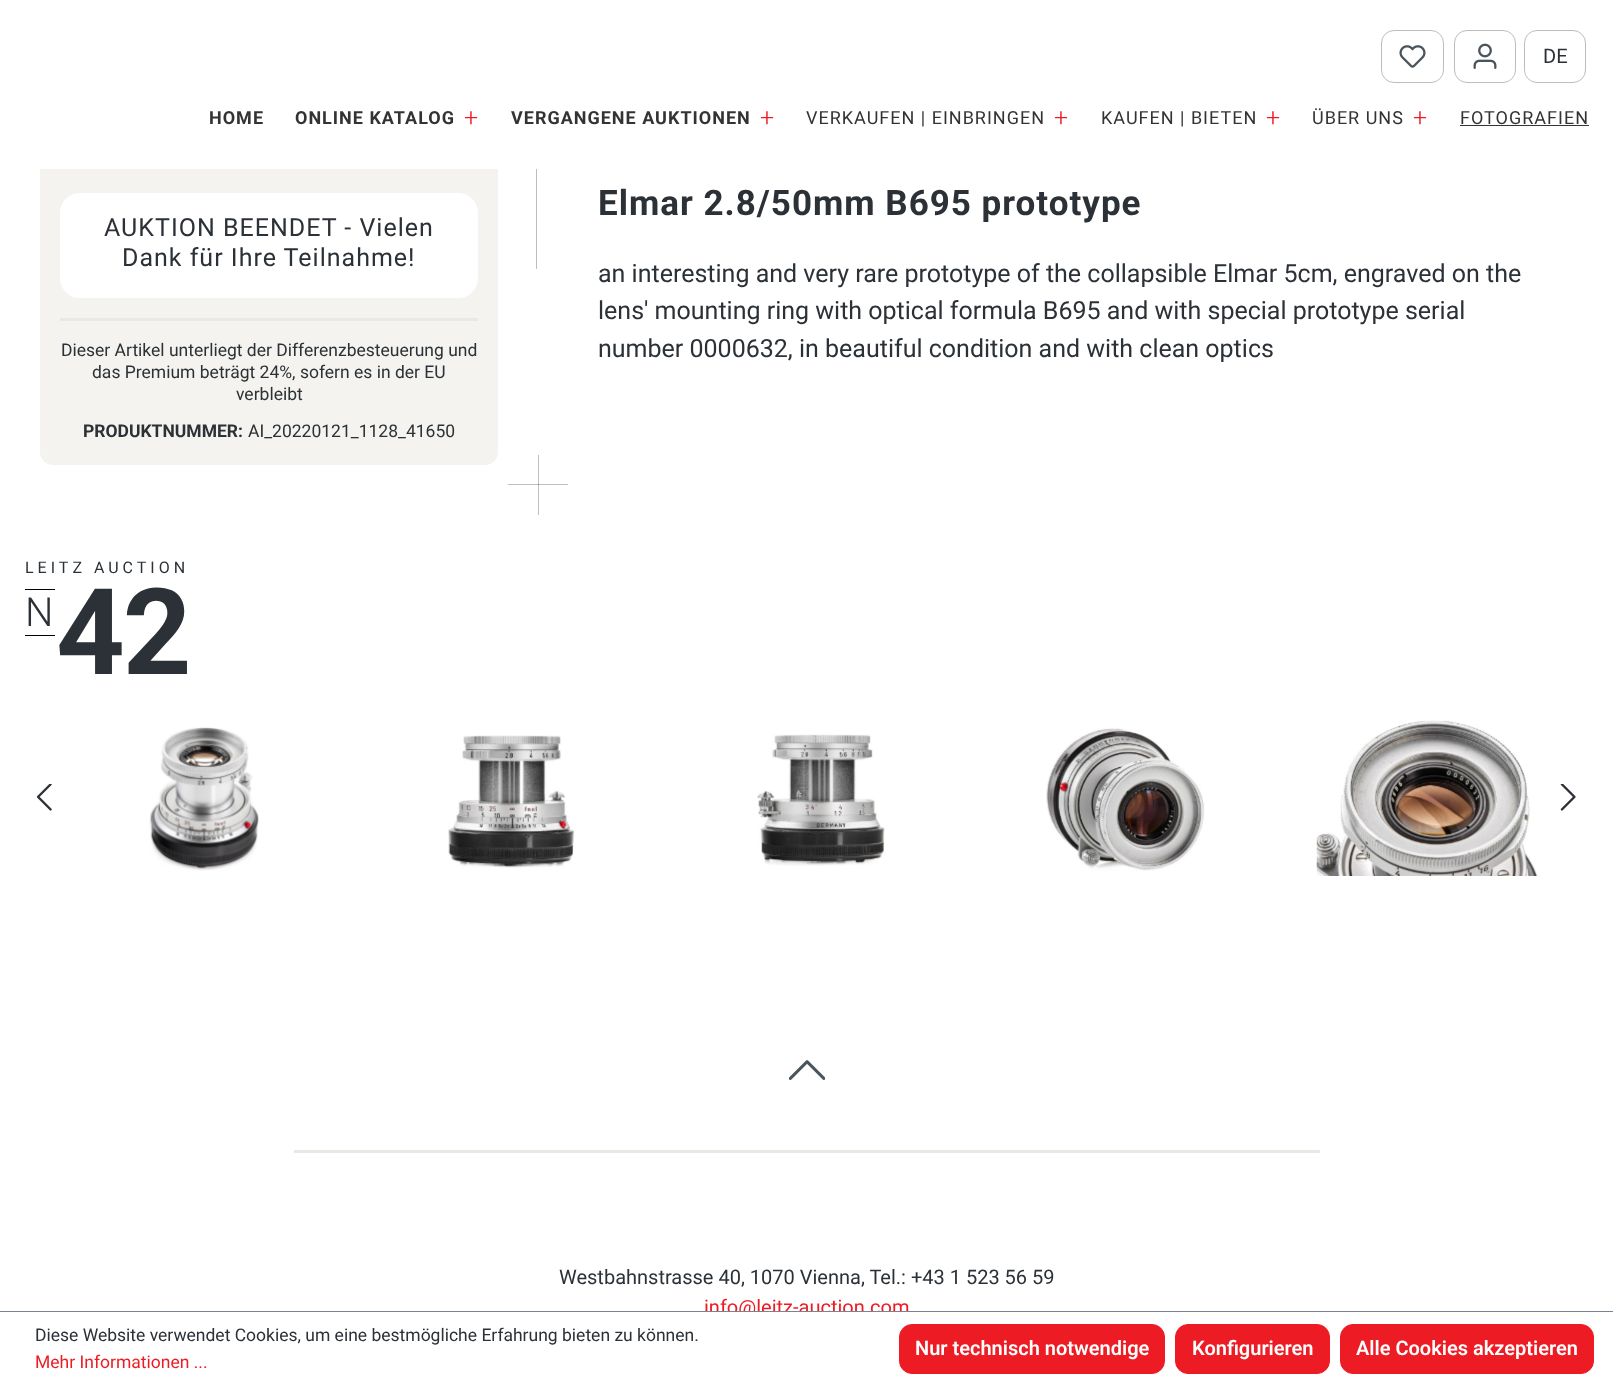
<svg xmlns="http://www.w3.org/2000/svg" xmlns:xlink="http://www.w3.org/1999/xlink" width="1613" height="1385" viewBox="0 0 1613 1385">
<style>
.cls-1{font:20px Roboto;fill:#2b3136}
.cls-2{font:bold 18px Roboto;letter-spacing:1px;fill:#333333}
.cls-3{font:300 25px Roboto;letter-spacing:1px;fill:#ed1c24}
.cls-4{font:18px Roboto;letter-spacing:1px;fill:#333333}
.cls-5{font:25px Roboto;letter-spacing:1px;fill:#2b3136}
.cls-6{font:17.5px Roboto;fill:#2b3136}
.cls-7{font:bold 17.5px Roboto;fill:#2b3136}
.cls-8{font:bold 35px Roboto;letter-spacing:1px;fill:#2b3136}
.cls-9{font:25px Roboto;fill:#2b3136}
.cls-10{font:16px Roboto;letter-spacing:4px;fill:#2b3136}
.cls-11{font:300 40px Roboto;letter-spacing:-2px;fill:#2b3136}
.cls-12{font:bold 120px Roboto;letter-spacing:-2px;fill:#2b3136}
.cls-13{font:20px Roboto;fill:#ed1c24}
.cls-14{font:17.5px Roboto;fill:#ed1c24}
.cls-15{font:600 20px Roboto;fill:#ffffff}
</style>
<rect width="100%" height="100%" fill="#ffffff"/>
<rect fill="#bfbfbf" x="508" y="484" width="60" height="1"/>
<rect fill="#f4f3ef" x="40" y="6" width="458" height="459" rx="13"/>
<rect fill="#ffffff" x="40" y="6" width="458" height="163"/>
<rect fill="none" stroke="#bdbdbd" x="1381.5" y="30.5" width="62" height="52" rx="12.5"/>
<image xlink:href="image0.png" x="1399" y="45" width="27" height="23"/>
<rect fill="none" stroke="#bdbdbd" x="1454.5" y="30.5" width="61" height="52" rx="12.5"/>
<image xlink:href="image1.png" x="1473" y="43" width="24" height="26"/>
<rect fill="none" stroke="#bdbdbd" x="1524.5" y="30.5" width="61" height="52" rx="12.5"/>
<rect fill="#333333" x="1460" y="125" width="129" height="1"/>
<rect fill="#ffffff" stroke="#ffffff" stroke-width="4" x="62" y="195" width="414" height="101" rx="18"/>
<rect fill="#eae8e2" x="60" y="318" width="418" height="3"/>
<rect fill="#bdbdbd" x="536" y="169" width="1" height="100"/>
<rect fill="#bfbfbf" x="538" y="455" width="1" height="60"/>
<rect fill="#8f8f8f" x="538" y="484" width="1" height="1"/>
<rect fill="#000000" x="25" y="589" width="30" height="1"/>
<rect fill="#000000" x="25" y="635" width="30" height="1"/>
<image xlink:href="image2.png" x="149" y="727" width="110" height="144"/>
<image xlink:href="image3.png" x="448" y="735" width="127" height="133"/>
<image xlink:href="image4.png" x="757" y="734" width="129" height="132"/>
<image xlink:href="image5.png" x="1046" y="728" width="159" height="143"/>
<image xlink:href="image6.png" x="1316" y="720" width="222" height="156"/>
<image xlink:href="image7.png" x="36" y="784" width="16" height="27"/>
<image xlink:href="image8.png" x="1560" y="784" width="16" height="27"/>
<image xlink:href="image9.png" x="789" y="1060" width="36" height="20"/>
<rect fill="#eae8e2" x="294" y="1150" width="1026" height="3"/>
<rect fill="#ed1c24" stroke="#ed1c24" x="899.5" y="1324.5" width="265" height="49" rx="12.5"/>
<rect fill="#ed1c24" stroke="#ed1c24" x="1175.5" y="1324.5" width="154" height="49" rx="12.5"/>
<rect fill="#ed1c24" stroke="#ed1c24" x="1340.5" y="1324.5" width="253" height="49" rx="12.5"/>
<text class="cls-1" x="1543" y="63">DE</text>
<text class="cls-2" x="209" y="124">HOME</text>
<text class="cls-2" x="295" y="124">ONLINE KATALOG</text>
<text class="cls-3" x="464" y="126">+</text>
<text class="cls-2" x="511" y="124">VERGANGENE AUKTIONEN</text>
<text class="cls-3" x="760" y="126">+</text>
<text class="cls-4" x="806" y="124">VERKAUFEN | EINBRINGEN</text>
<text class="cls-3" x="1054" y="126">+</text>
<text class="cls-4" x="1101" y="124">KAUFEN | BIETEN</text>
<text class="cls-3" x="1266" y="126">+</text>
<text class="cls-4" x="1312" y="124">ÜBER UNS</text>
<text class="cls-3" x="1413" y="126">+</text>
<text class="cls-4" x="1460" y="124">FOTOGRAFIEN</text>
<text class="cls-5" x="104" y="236">AUKTION BEENDET - Vielen</text>
<text class="cls-5" x="122" y="266">Dank für Ihre Teilnahme!</text>
<text class="cls-6" x="61" y="356">Dieser Artikel unterliegt der Differenzbesteuerung und</text>
<text class="cls-6" x="92" y="378">das Premium beträgt 24%, sofern es in der EU</text>
<text class="cls-6" x="236" y="400">verbleibt</text>
<text class="cls-7" x="83" y="437">PRODUKTNUMMER:</text>
<text class="cls-6" x="248" y="437">AI_20220121_1128_41650</text>
<text class="cls-8" x="598" y="215">Elmar 2.8/50mm B695 prototype</text>
<text class="cls-9"><tspan x="598" y="282">an interesting and very rare prototype of the collapsible Elmar 5cm, engraved on the</tspan><tspan x="598" y="319">lens' mounting ring with optical formula B695 and with special prototype serial</tspan><tspan x="598" y="357">number 0000632, in beautiful condition and with clean optics</tspan></text>
<text class="cls-10" x="25" y="573">LEITZ AUCTION</text>
<text class="cls-11" x="25" y="626">N</text>
<text class="cls-12" x="56" y="674">42</text>
<text class="cls-1" x="559" y="1284">Westbahnstrasse 40, 1070 Vienna, Tel.: +43 1 523 56 59</text>
<text class="cls-13" x="704" y="1314">info@leitz-auction.com</text>
<rect fill="#ffffff" x="705" y="1312" width="204" height="7"/>
<rect fill="#798490" x="0" y="1311" width="1613" height="1"/>
<text class="cls-6" x="35" y="1341">Diese Website verwendet Cookies, um eine bestmögliche Erfahrung bieten zu können.</text>
<text class="cls-14" x="35" y="1368">Mehr Informationen ...</text>
<text class="cls-15" x="915" y="1355">Nur technisch notwendige</text>
<text class="cls-15" x="1192" y="1355">Konfigurieren</text>
<text class="cls-15" x="1356" y="1355">Alle Cookies akzeptieren</text>
</svg>
